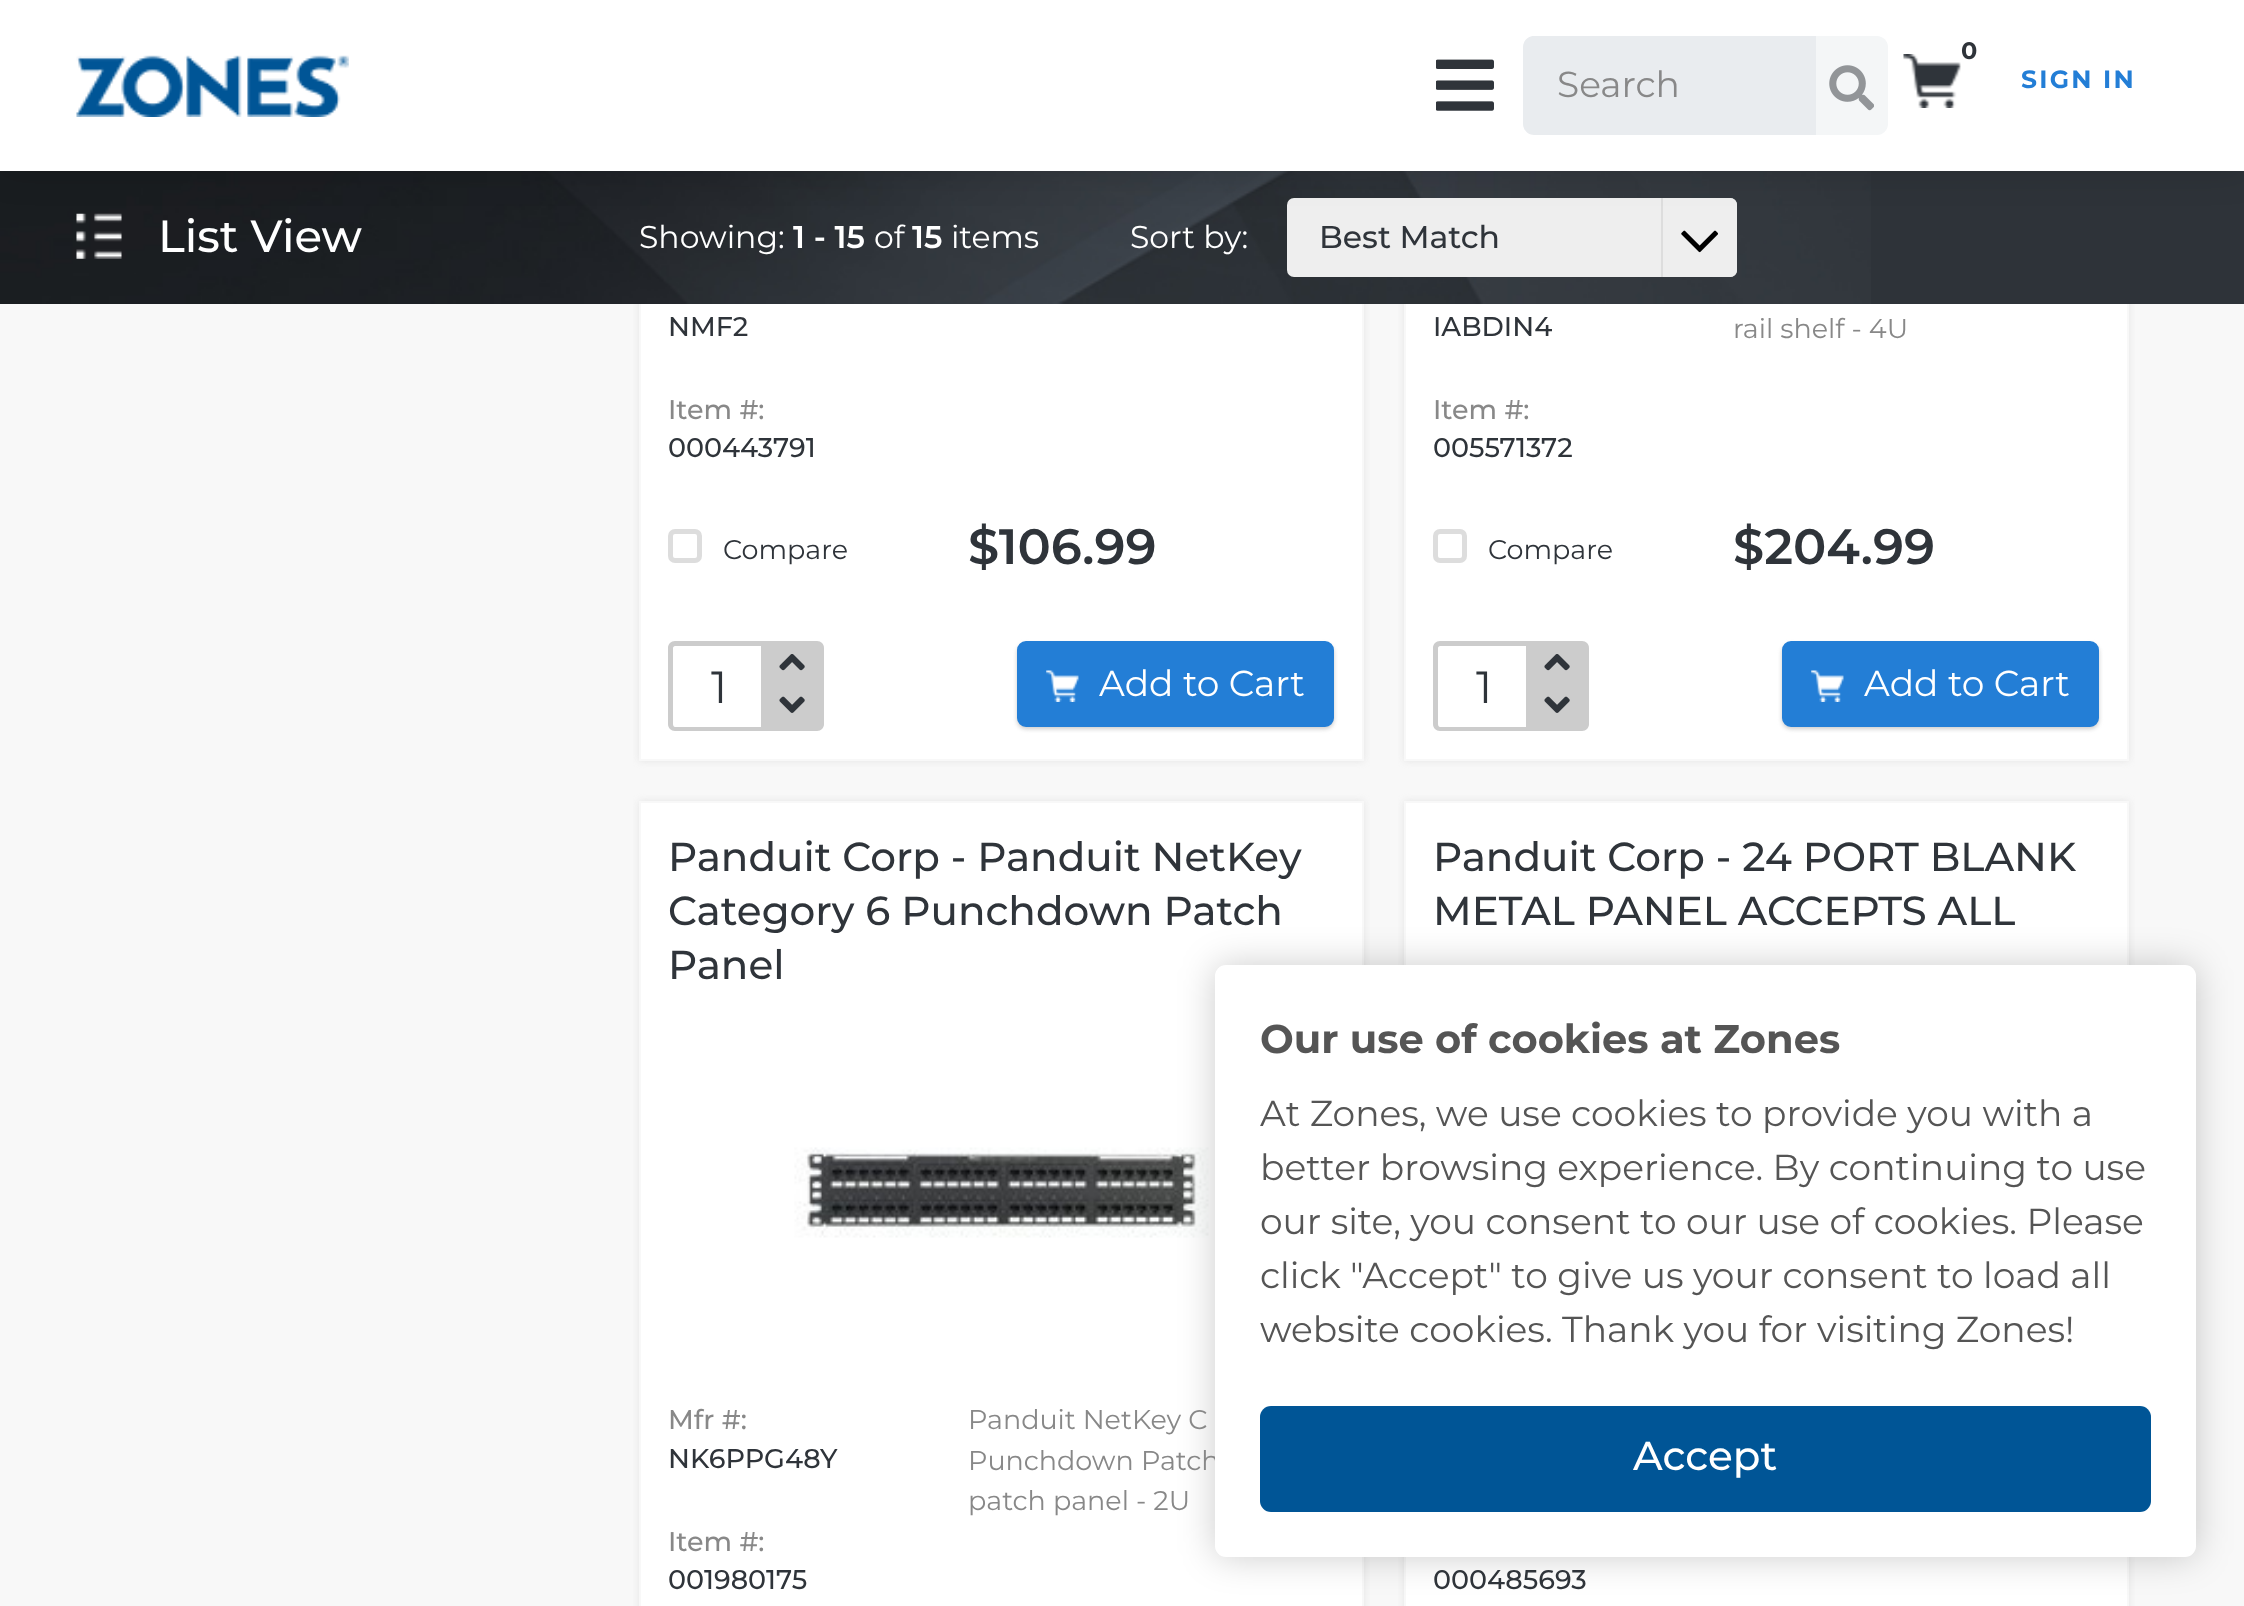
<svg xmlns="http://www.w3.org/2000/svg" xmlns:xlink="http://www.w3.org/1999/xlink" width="2244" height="1606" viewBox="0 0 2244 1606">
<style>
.cls-1{font:500 45px Montserrat;fill:#ffffff}
.cls-2{font:31.5px Montserrat;fill:#ffffff}
.cls-3{font:600 31.5px Montserrat;fill:#ffffff}
.cls-4{font:500 31.5px Montserrat;fill:#2f343a}
.cls-5{font:bold 24px Montserrat;fill:#2f343a}
.cls-6{font:36px Montserrat;fill:#888888}
.cls-7{font:bold 25px Montserrat;letter-spacing:2.25px;fill:#237ed6}
.cls-8{font:500 27px Montserrat;fill:#2f343a}
.cls-9{font:500 27px Montserrat;fill:#888888}
.cls-10{font:27px Montserrat;fill:#2f343a}
.cls-11{font:600 49.5px Montserrat;fill:#2f343a}
.cls-12{font:45px Montserrat;fill:#2f343a}
.cls-13{font:36px Montserrat;fill:#ffffff}
.cls-14{font:27px Montserrat;fill:#888888}
.cls-15{font:500 40.5px Montserrat;fill:#2f343a}
.cls-16{font:500 40.5px Montserrat;fill:#ffffff}
.cls-17{font:36px Montserrat;fill:#555555}
.cls-18{font:bold 40px Montserrat;fill:#555555}
</style>
<rect width="100%" height="100%" fill="#f8f8f8"/>
<rect fill="#e4e4e4" filter="blur(3.5px)" x="1404" y="-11" width="725" height="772"/>
<rect fill="#ffffff" x="1406" y="304" width="721" height="455"/>
<rect fill="none" stroke="#f8f8f8" stroke-width="2" x="1405" y="-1" width="723" height="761"/>
<rect fill="#2e3339" x="1871" y="171" width="373" height="133"/>
<rect fill="#e4e4e4" filter="blur(3.5px)" x="639" y="-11" width="725" height="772"/>
<rect fill="#ffffff" x="641" y="304" width="721" height="455"/>
<rect fill="none" stroke="#f8f8f8" stroke-width="2" x="640" y="-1" width="723" height="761"/>
<image xlink:href="image0.png" x="0" y="171" width="1871" height="133"/>
<image xlink:href="image1.png" x="76" y="213" width="46" height="46"/>
<rect fill="#eeeeee" x="1287" y="198" width="450" height="79" rx="7"/>
<path fill="#eeeeee" d="M1661 198H1730C1734 198 1737 201 1737 205V270C1737 274 1734 277 1730 277H1661Z"/>
<rect fill="#dddddd" x="1661" y="198" width="2" height="79"/>
<image xlink:href="image2.png" x="1681" y="230" width="37" height="23"/>
<rect fill="#000000" fill-opacity="0.15" filter="blur(17px)" x="0" y="0" width="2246" height="171"/>
<rect fill="#ffffff" x="0" y="0" width="2244" height="171"/>
<image xlink:href="image3.png" x="76" y="55" width="273" height="62"/>
<image xlink:href="image4.png" x="1436" y="59" width="58" height="52"/>
<image xlink:href="image5.png" x="1903" y="54" width="58" height="54"/>
<path fill="#e9ecef" d="M1534 36H1816V135H1534C1528 135 1523 130 1523 124V47C1523 41 1528 36 1534 36Z"/>
<path fill="#f4f6f7" d="M1816 36H1877C1883 36 1888 41 1888 47V124C1888 130 1883 135 1877 135H1816Z"/>
<image xlink:href="image6.png" x="1829" y="65" width="45" height="46"/>
<rect fill="#e4e4e4" filter="blur(3.5px)" x="639" y="801" width="725" height="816"/>
<rect fill="#ffffff" stroke="#f8f8f8" stroke-width="2" x="640" y="802" width="723" height="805"/>
<image xlink:href="image10.png" x="794" y="1147" width="415" height="91"/>
<rect fill="#e4e4e4" filter="blur(3.5px)" x="1404" y="801" width="725" height="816"/>
<rect fill="#ffffff" stroke="#f8f8f8" stroke-width="2" x="1405" y="802" width="723" height="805"/>
<rect fill="#020203" fill-opacity="0.2" filter="blur(18px)" x="1215" y="965" width="981" height="592" rx="11"/>
<rect fill="none" stroke="#dddddd" stroke-width="5" x="670.5" y="531.5" width="29" height="29" rx="4.5"/>
<path fill="#cccccc" d="M675 641C671 641 668 644 668 648V724C668 728 671 731 675 731H765V727H675C674 727 673 726 673 724V648C673 647 674 646 675 646H765V641Z"/>
<path fill="#cccccc" d="M761 641H817C821 641 824 644 824 648V724C824 728 821 731 817 731H761Z"/>
<image xlink:href="image7.png" x="779" y="654" width="26" height="17"/>
<image xlink:href="image8.png" x="779" y="696" width="26" height="17"/>
<rect fill="#cccccc" filter="blur(2px)" x="1017" y="644" width="317" height="85" rx="9"/>
<rect fill="#237ed6" stroke="#237ed6" stroke-width="2" x="1018" y="642" width="315" height="84" rx="8"/>
<image xlink:href="image9.png" x="1046" y="670" width="33" height="32"/>
<rect fill="none" stroke="#dddddd" stroke-width="5" x="1435.5" y="531.5" width="29" height="29" rx="4.5"/>
<path fill="#cccccc" d="M1440 641C1436 641 1433 644 1433 648V724C1433 728 1436 731 1440 731H1530V727H1440C1439 727 1438 726 1438 724V648C1438 647 1439 646 1440 646H1530V641Z"/>
<path fill="#cccccc" d="M1526 641H1582C1586 641 1589 644 1589 648V724C1589 728 1586 731 1582 731H1526Z"/>
<image xlink:href="image7.png" x="1544" y="654" width="26" height="17"/>
<image xlink:href="image8.png" x="1544" y="696" width="26" height="17"/>
<rect fill="#cccccc" filter="blur(2px)" x="1782" y="644" width="317" height="85" rx="9"/>
<rect fill="#237ed6" stroke="#237ed6" stroke-width="2" x="1783" y="642" width="315" height="84" rx="8"/>
<image xlink:href="image9.png" x="1811" y="670" width="33" height="32"/>
<text class="cls-1" x="158" y="252">List View</text>
<text class="cls-2" x="639" y="248">Showing:</text>
<text class="cls-3" x="793" y="248">1 - 15</text>
<text class="cls-2" x="874" y="248">of</text>
<text class="cls-3" x="912" y="248">15</text>
<text class="cls-2" x="951" y="248">items</text>
<text class="cls-2" x="1130" y="248">Sort by:</text>
<text class="cls-4" x="1319" y="248">Best Match</text>
<text class="cls-5" x="1961" y="59">0</text>
<text class="cls-6" x="1557" y="97">Search</text>
<text class="cls-7" x="2021" y="88">SIGN IN</text>
<text class="cls-8" x="668" y="336">NMF2</text>
<text class="cls-9" x="668" y="419">Item #:</text>
<text class="cls-8" x="668" y="457">000443791</text>
<text class="cls-10" x="723" y="559">Compare</text>
<text class="cls-11" x="968" y="564">$106.99</text>
<text class="cls-12" x="711" y="703">1</text>
<text class="cls-13" x="1099" y="696">Add to Cart</text>
<text class="cls-8" x="1433" y="336">IABDIN4</text>
<text class="cls-9" x="1433" y="419">Item #:</text>
<text class="cls-8" x="1433" y="457">005571372</text>
<text class="cls-10" x="1488" y="559">Compare</text>
<text class="cls-14" x="1733" y="338">rail shelf - 4U</text>
<text class="cls-11" x="1733" y="564">$204.99</text>
<text class="cls-12" x="1476" y="703">1</text>
<text class="cls-13" x="1864" y="696">Add to Cart</text>
<text class="cls-15"><tspan x="668" y="871">Panduit Corp - Panduit NetKey</tspan><tspan x="668" y="925">Category 6 Punchdown Patch</tspan><tspan x="668" y="979">Panel</tspan></text>
<text class="cls-9" x="668" y="1429">Mfr #:</text>
<text class="cls-8" x="668" y="1468">NK6PPG48Y</text>
<text class="cls-9" x="668" y="1551">Item #:</text>
<text class="cls-8" x="668" y="1589">001980175</text>
<text class="cls-14"><tspan x="968" y="1429">Panduit NetKey C</tspan><tspan x="968" y="1470">Punchdown Patch</tspan></text>
<rect fill="#ffffff" x="1215" y="965" width="981" height="592" rx="11"/>
<rect fill="#005596" x="1260" y="1406" width="891" height="106" rx="11"/>
<text class="cls-16" x="1633" y="1470">Accept</text>
<text class="cls-17" x="1260" y="1342">website cookies. Thank you for visiting Zones!</text>
<text class="cls-17" x="1260" y="1288">click "Accept" to give us your consent to load all</text>
<text class="cls-17" x="1260" y="1234">our site, you consent to our use of cookies. Please</text>
<text class="cls-17" x="1260" y="1180">better browsing experience. By continuing to use</text>
<text class="cls-17" x="1260" y="1126">At Zones, we use cookies to provide you with a</text>
<text class="cls-18" x="1260" y="1053">Our use of cookies at Zones</text>
<text class="cls-14" x="968" y="1510">patch panel - 2U</text>
<text class="cls-15"><tspan x="1433" y="871">Panduit Corp - 24 PORT BLANK</tspan><tspan x="1433" y="925">METAL PANEL ACCEPTS ALL</tspan></text>
<text class="cls-8" x="1433" y="1589">000485693</text>
</svg>
